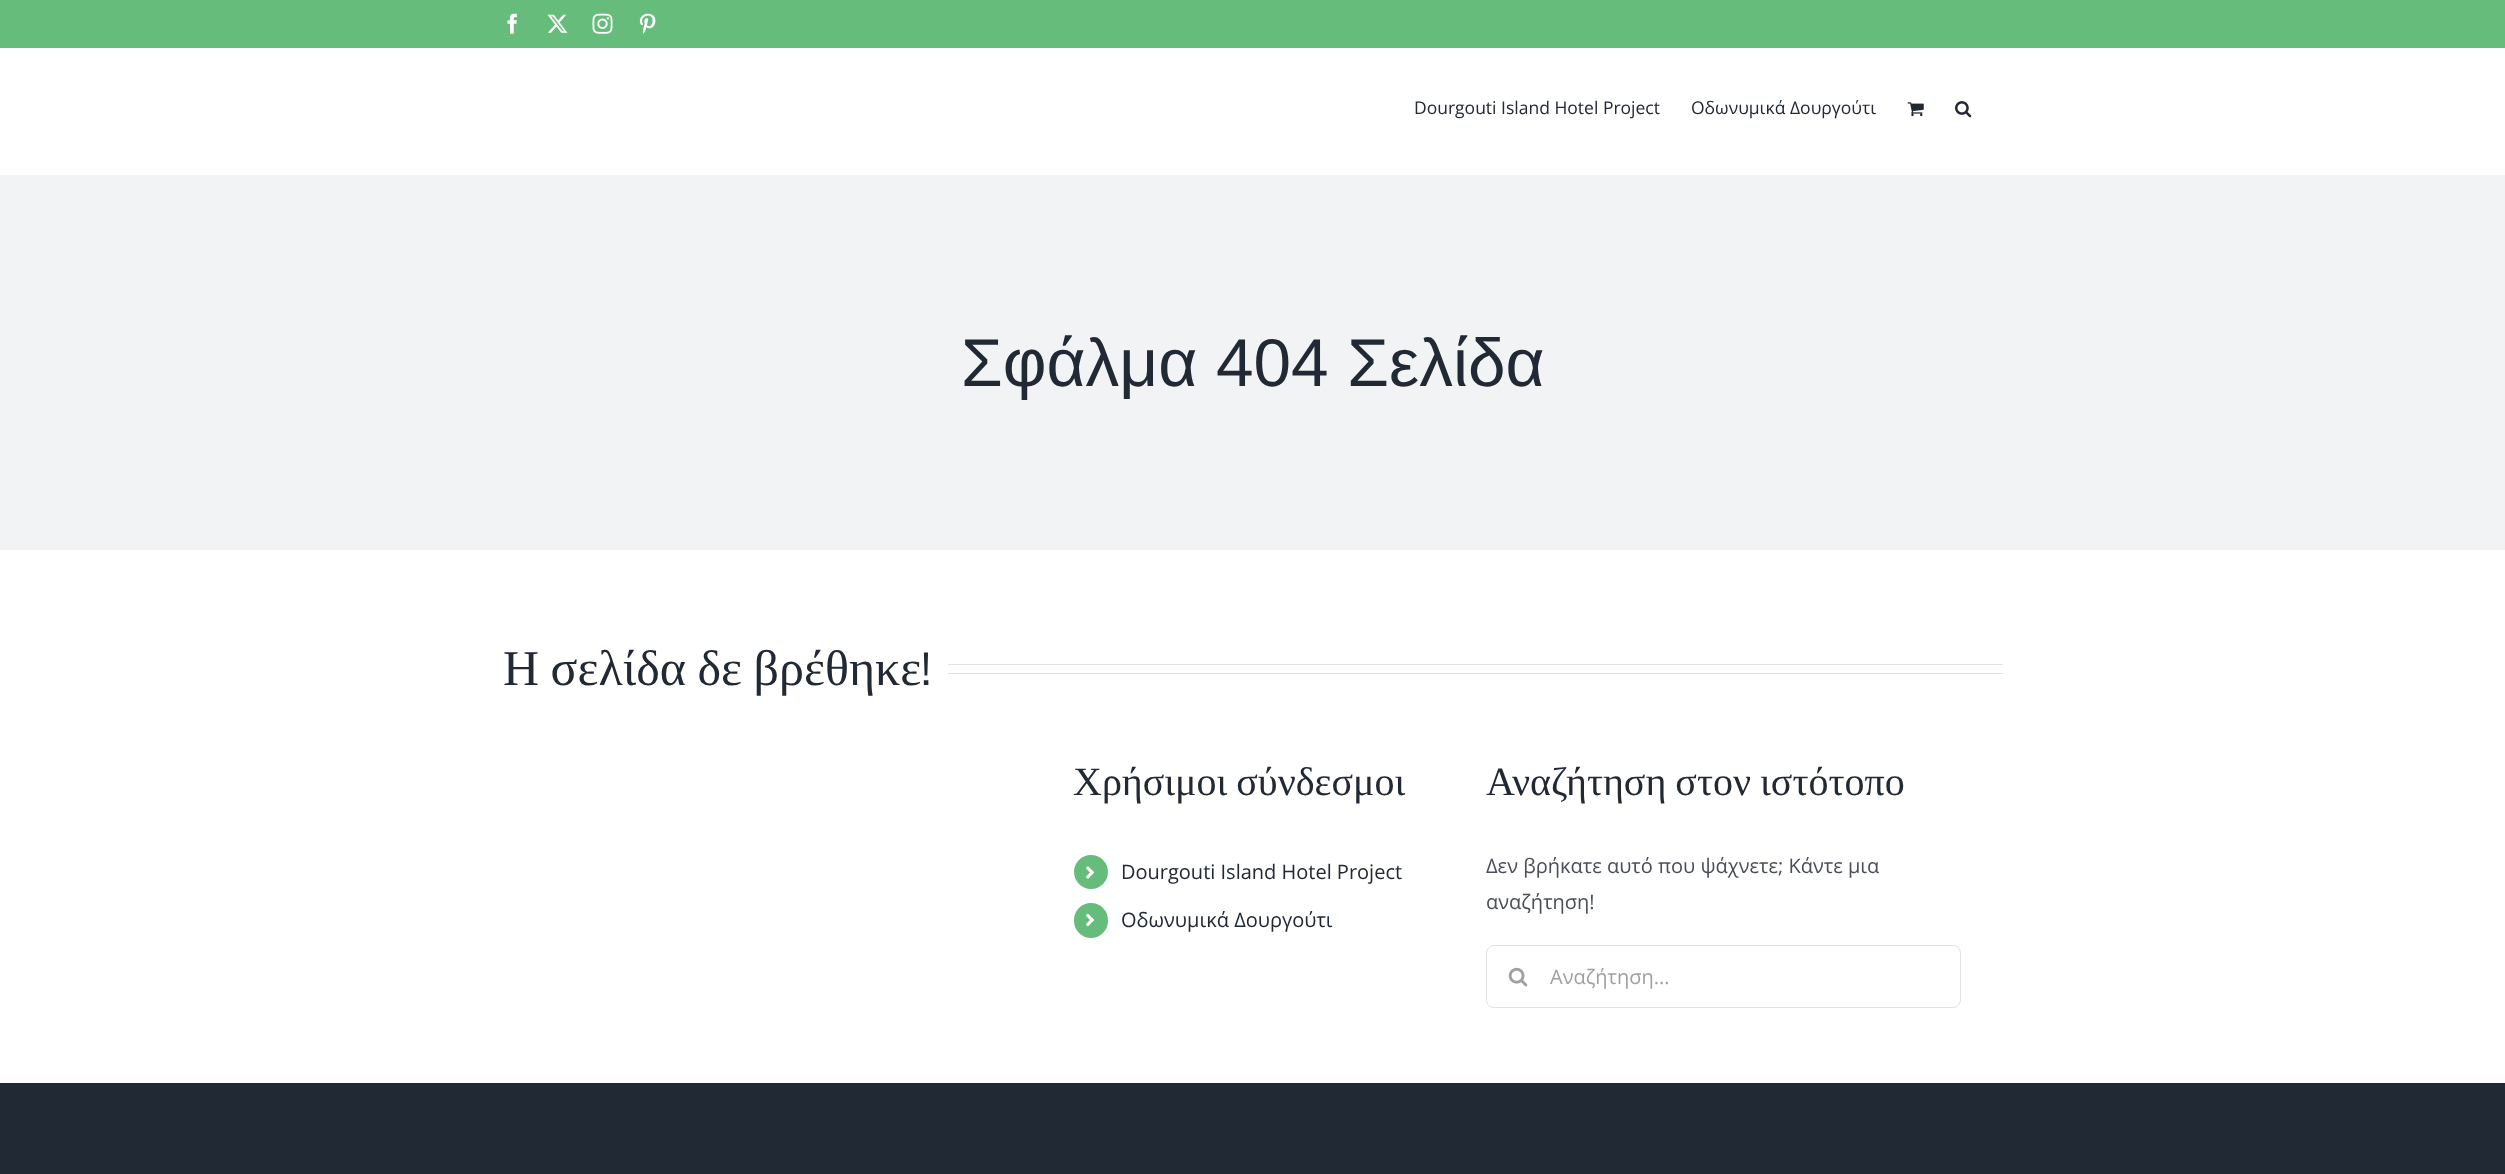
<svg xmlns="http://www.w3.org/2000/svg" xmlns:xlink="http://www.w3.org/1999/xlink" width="2505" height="1174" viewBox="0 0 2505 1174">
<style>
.cls-1{font:17.5px Open Sans;fill:#212934}
.cls-2{font:67.5px Liberation Sans;fill:#212934}
.cls-3{font:50px Liberation Serif;fill:#212934}
.cls-4{font:50px Zilla Slab;fill:#212934}
.cls-5{font:40px Liberation Serif;fill:#212934}
.cls-6{font:20px Open Sans;fill:#212934}
.cls-7{font:20px Open Sans;fill:#4a4e57}
.cls-8{font:20px Open Sans;fill:#9ea0a4}
</style>
<rect width="100%" height="100%" fill="#ffffff"/>
<rect fill="#65bc7b" x="0" y="0" width="2505" height="48"/>
<image xlink:href="image0.png" x="507" y="13" width="10" height="21"/>
<image xlink:href="image1.png" x="547" y="14" width="21" height="19"/>
<image xlink:href="image2.png" x="592" y="13" width="21" height="21"/>
<image xlink:href="image3.png" x="639" y="13" width="17" height="21"/>
<image xlink:href="image4.png" x="1907" y="102" width="17" height="15"/>
<image xlink:href="image5.png" x="1955" y="101" width="17" height="17"/>
<rect fill="#f2f3f5" x="0" y="175" width="2505" height="375"/>
<rect fill="#e2e2e2" x="948" y="664" width="1055" height="1"/>
<rect fill="#e2e2e2" x="948" y="673" width="1055" height="1"/>
<circle fill="#65bc7b" cx="1091" cy="872" r="17"/>
<image xlink:href="image6.png" x="1086" y="866" width="8" height="13"/>
<rect fill="#65bc7b" x="1074" y="903" width="34" height="35" rx="17"/>
<image xlink:href="image7.png" x="1086" y="913" width="8" height="14"/>
<rect fill="none" stroke="#e2e2e2" x="1486.5" y="945.5" width="474" height="62" rx="7.5"/>
<image xlink:href="image8.png" x="1508" y="967" width="20" height="20"/>
<rect fill="#212934" x="0" y="1083" width="2505" height="91"/>
<text class="cls-1" x="1414" y="114">Dourgouti Island Hotel Project</text>
<text class="cls-1" x="1691" y="114">Οδωνυμικά Δουργούτι</text>
<text class="cls-2" x="961" y="386">Σφάλμα 404 Σελίδα</text>
<text class="cls-3" x="503" y="685" word-spacing="-1">Η σελίδα δε βρέθηκε</text>
<text class="cls-4" x="920" y="685">!</text>
<text class="cls-5" x="1073" y="795" word-spacing="-1">Χρήσιμοι σύνδεσμοι</text>
<text class="cls-6" x="1121" y="879">Dourgouti Island Hotel Project</text>
<text class="cls-6" x="1121" y="927">Οδωνυμικά Δουργούτι</text>
<text class="cls-5" x="1486" y="795" word-spacing="-1">Αναζήτηση στον ιστότοπο</text>
<text class="cls-7"><tspan x="1486" y="873">Δεν βρήκατε αυτό που ψάχνετε; Κάντε μια</tspan><tspan x="1486" y="909">αναζήτηση!</tspan></text>
<text class="cls-8" x="1550" y="984">Αναζήτηση...</text>
</svg>
